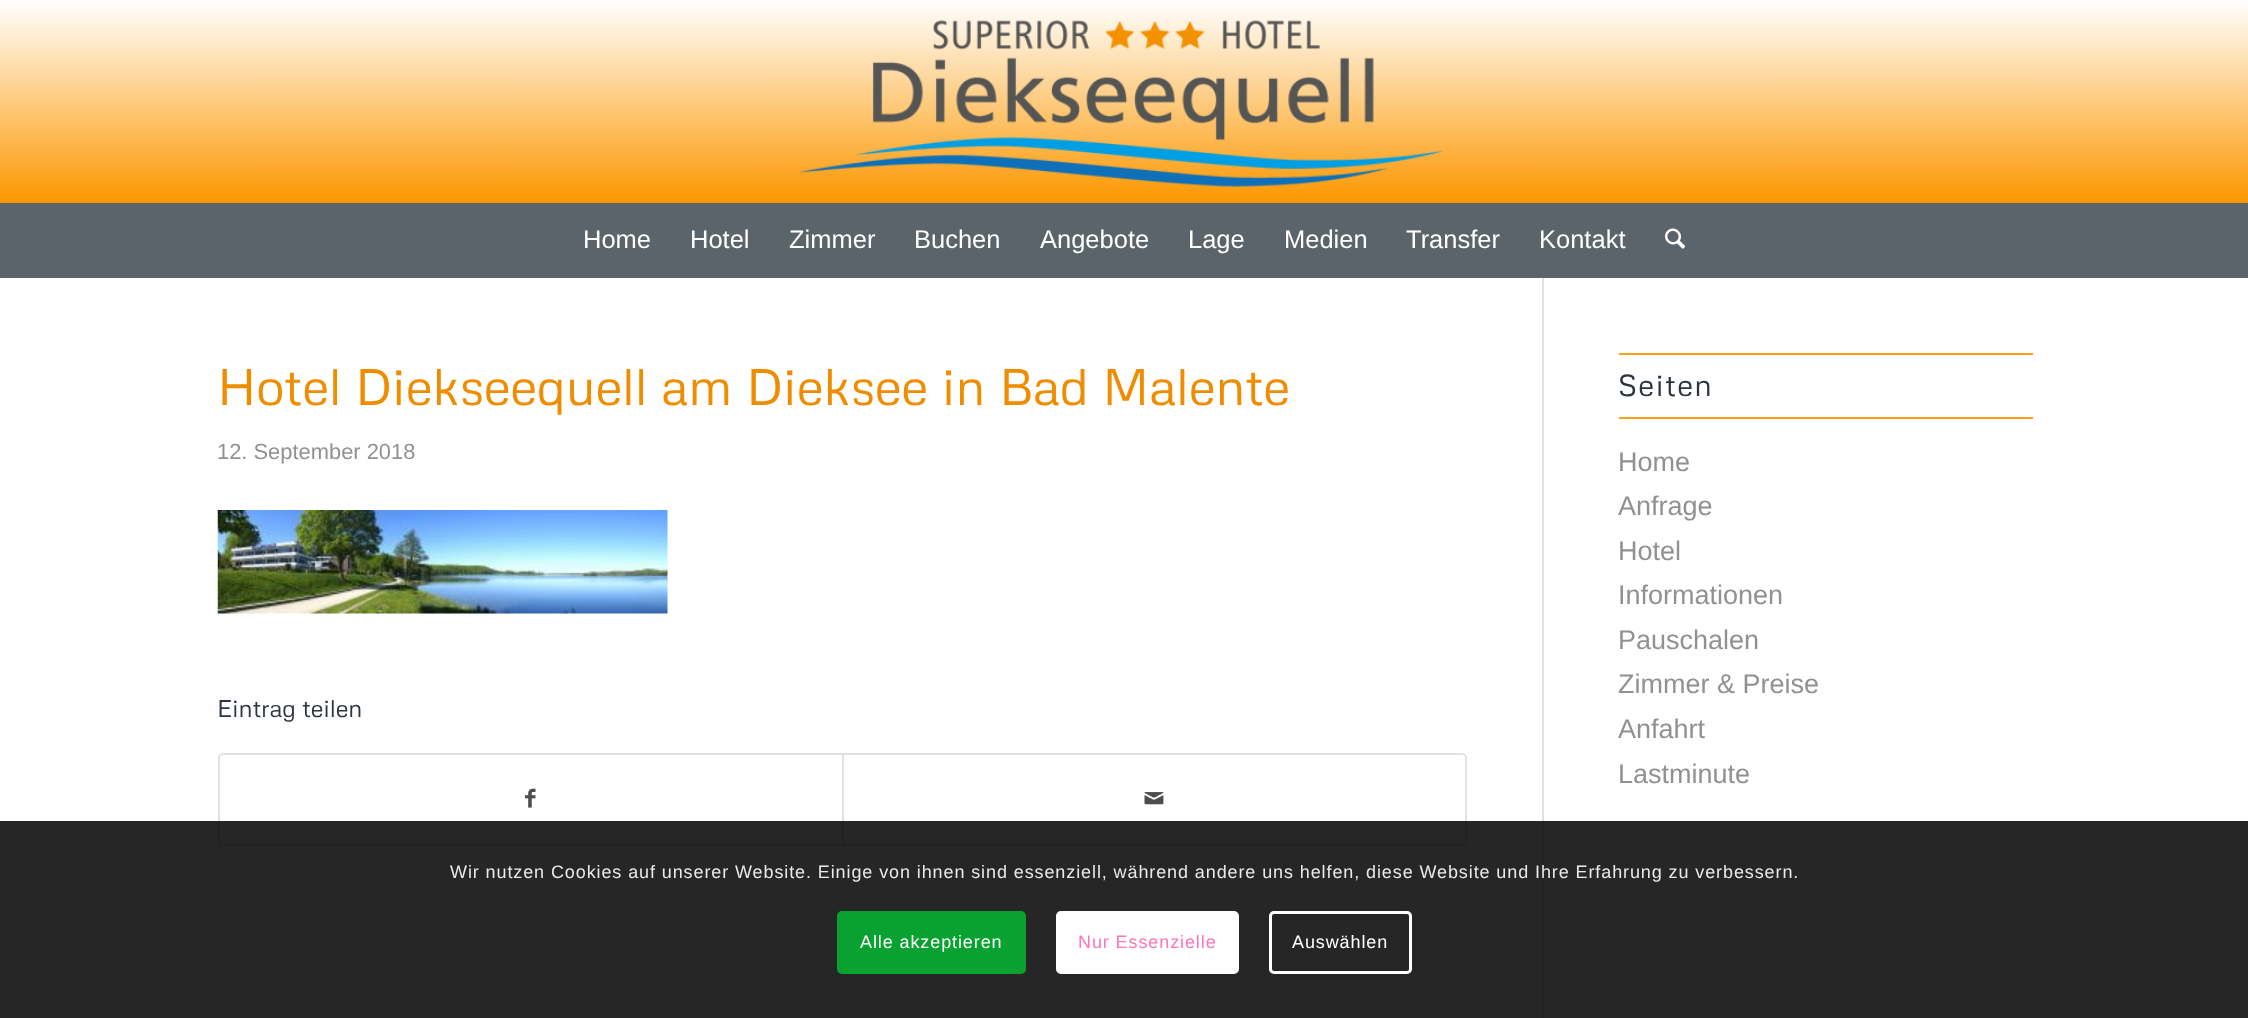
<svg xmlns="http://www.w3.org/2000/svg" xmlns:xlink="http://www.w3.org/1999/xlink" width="2248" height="1018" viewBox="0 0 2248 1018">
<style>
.cls-1{font:25.5px Liberation Sans;fill:#ffffff}
.cls-2{font:51px Metrophobic;fill:#f08c00}
.cls-3{font:21.9px Liberation Sans;fill:#919191}
.cls-4{font:24px Metrophobic;fill:#2c353d}
.cls-5{font:30px Metrophobic;letter-spacing:1.5px;fill:#2c353d}
.cls-6{font:27px Liberation Sans;fill:#919191}
.cls-7{font:18px Liberation Sans;letter-spacing:0.9px;fill:#e9e9e9}
.cls-8{font:18px Liberation Sans;letter-spacing:0.9px;fill:#ffffff}
.cls-9{font:18px Liberation Sans;letter-spacing:0.9px;fill:#ff75b5}
</style>
<defs>
<linearGradient id="g1" gradientUnits="userSpaceOnUse" x1="1124" y1="0" x2="1124" y2="278"><stop offset="0" stop-color="#ffffff"/><stop offset="0.73" stop-color="#fc9700"/></linearGradient>
</defs>
<rect width="100%" height="100%" fill="#ffffff"/>
<rect fill="url(#g1)" x="0" y="2" width="2248" height="201"/>
<image xlink:href="image0.png" x="799" y="20" width="645" height="167"/>
<rect fill="#5b646b" x="0" y="203" width="2248" height="75"/>
<image xlink:href="image1.png" x="1665" y="228" width="21" height="21"/>
<rect fill="#e1e1e1" x="1542" y="278" width="2" height="740"/>
<image xlink:href="image2.png" x="217" y="510" width="451" height="104"/>
<rect fill="none" stroke="#e1e1e1" stroke-width="2" x="219" y="754" width="1247" height="91" rx="4"/>
<image xlink:href="image3.png" x="525" y="788" width="11" height="20"/>
<rect fill="#e1e1e1" x="842" y="755" width="2" height="90"/>
<image xlink:href="image4.png" x="1144" y="792" width="20" height="13"/>
<rect fill="#fca017" x="1619" y="353" width="414" height="2"/>
<rect fill="#fca017" x="1619" y="417" width="414" height="2"/>
<rect fill="#000000" fill-opacity="0.85" x="0" y="821" width="2248" height="197"/>
<rect fill="#09a12f" stroke="#09a12f" stroke-width="3" x="838.5" y="912.5" width="186" height="60" rx="3.5"/>
<rect fill="#ffffff" stroke="#ffffff" stroke-width="3" x="1057.5" y="912.5" width="180" height="60" rx="3.5"/>
<rect fill="none" stroke="#ffffff" stroke-width="3" x="1270.5" y="912.5" width="140" height="60" rx="3.5"/>
<text class="cls-1" x="583" y="248">Home</text>
<text class="cls-1" x="690" y="248">Hotel</text>
<text class="cls-1" x="789" y="248">Zimmer</text>
<text class="cls-1" x="914" y="248">Buchen</text>
<text class="cls-1" x="1040" y="248">Angebote</text>
<text class="cls-1" x="1188" y="248">Lage</text>
<text class="cls-1" x="1284" y="248">Medien</text>
<text class="cls-1" x="1406" y="248">Transfer</text>
<text class="cls-1" x="1539" y="248">Kontakt</text>
<text class="cls-2" x="217" y="405">Hotel Diekseequell am Dieksee in Bad Malente</text>
<text class="cls-3" x="217" y="459">12. September 2018</text>
<text class="cls-4" x="217" y="717">Eintrag teilen</text>
<text class="cls-5" x="1618" y="396">Seiten</text>
<text class="cls-6"><tspan x="1618" y="471">Home</tspan><tspan x="1618" y="515">Anfrage</tspan><tspan x="1618" y="560">Hotel</tspan><tspan x="1618" y="604">Informationen</tspan><tspan x="1618" y="649">Pauschalen</tspan><tspan x="1618" y="693">Zimmer &amp; Preise</tspan><tspan x="1618" y="738">Anfahrt</tspan><tspan x="1618" y="783">Lastminute</tspan></text>
<text class="cls-7" x="450" y="878">Wir nutzen Cookies auf unserer Website. Einige von ihnen sind essenziell, während andere uns helfen, diese Website und Ihre Erfahrung zu verbessern.</text>
<text class="cls-8" x="860" y="948">Alle akzeptieren</text>
<text class="cls-9" x="1078" y="948">Nur Essenzielle</text>
<text class="cls-8" x="1292" y="948">Auswählen</text>
</svg>
